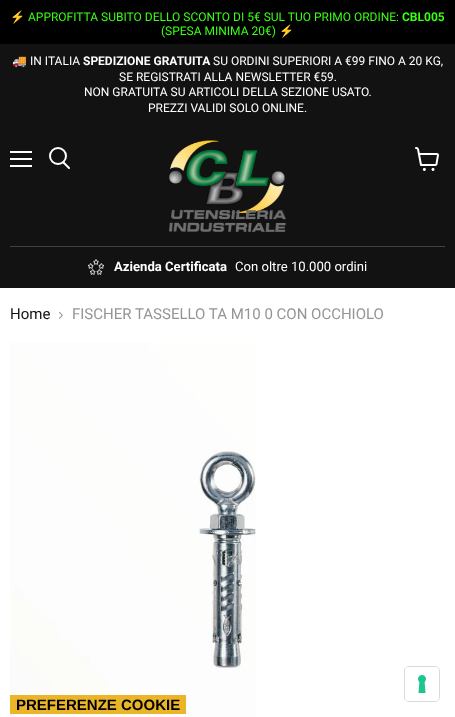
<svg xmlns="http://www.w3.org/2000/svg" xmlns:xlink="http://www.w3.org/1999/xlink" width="455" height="717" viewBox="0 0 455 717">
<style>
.cls-1{font:12px Noto Color Emoji;fill:#39ff14}
.cls-2{font:12px Roboto;fill:#39ff14}
.cls-3{font:bold 12px Roboto;fill:#39ff14}
.cls-4{font:12px Noto Color Emoji;fill:#ffffff}
.cls-5{font:12px Roboto;fill:#ffffff}
.cls-6{font:bold 12px Roboto;fill:#ffffff}
.cls-7{font:bold 13.1px Roboto;fill:#ffffff}
.cls-8{font:13.1px Roboto;fill:#ffffff}
.cls-9{font:15px Roboto;fill:#121212}
.cls-10{font:15px Roboto;fill:#949494}
.cls-11{font:bold 15px Liberation Sans;fill:#000000}
</style>
<rect width="100%" height="100%" fill="#ffffff"/>
<rect fill="#000000" x="0" y="0" width="455" height="44"/>
<rect fill="#121212" x="0" y="44" width="455" height="244"/>
<rect fill="#ffffff" x="10" y="151" width="22" height="2"/>
<rect fill="#ffffff" x="10" y="158" width="22" height="2"/>
<rect fill="#ffffff" x="10" y="165" width="22" height="2"/>
<path fill="none" stroke="#ffffff" stroke-width="2" stroke-linecap="round" d="M69 168L63.5 162.5"/>
<circle fill="none" stroke="#ffffff" stroke-width="2" cx="58" cy="156" r="8"/>
<image xlink:href="image0.png" x="415" y="147" width="24" height="24"/>
<image xlink:href="image1.png" x="169" y="140" width="117" height="92"/>
<rect fill="#414141" x="10" y="246" width="435" height="1"/>
<image xlink:href="image2.png" x="88" y="259" width="16" height="16"/>
<image xlink:href="image3.png" x="59" y="311" width="4" height="8"/>
<image xlink:href="image4.png" x="10" y="342" width="246" height="375"/>
<rect fill="none" stroke="#d9d9d9" x="404.5" y="666.5" width="35" height="35" rx="4.5"/>
<rect fill="#ffffff" x="405" y="667" width="34" height="34" rx="4"/>
<image xlink:href="image5.png" x="418" y="675" width="8" height="18"/>
<rect fill="#ebb52a" x="10" y="695" width="176" height="19"/>
<text class="cls-1" x="10" y="21">⚡</text>
<text class="cls-2" x="28" y="21">APPROFITTA SUBITO DELLO SCONTO DI 5€ SUL TUO PRIMO ORDINE:</text>
<text class="cls-3" x="402" y="21">CBL005</text>
<text class="cls-2" x="161" y="35">(SPESA MINIMA 20€)</text>
<text class="cls-1" x="279" y="35">⚡</text>
<text class="cls-4" x="12" y="65">🚚</text>
<text class="cls-5" x="30" y="65">IN ITALIA</text>
<text class="cls-6" x="83" y="65">SPEDIZIONE GRATUITA</text>
<text class="cls-5" x="213" y="65">SU ORDINI SUPERIORI A €99 FINO A 20 KG,</text>
<text class="cls-5" x="119" y="81">SE REGISTRATI ALLA NEWSLETTER €59.</text>
<text class="cls-5" x="84" y="96">NON GRATUITA SU ARTICOLI DELLA SEZIONE USATO.</text>
<text class="cls-5" x="148" y="112">PREZZI VALIDI SOLO ONLINE.</text>
<text class="cls-7" x="114" y="271">Azienda Certificata</text>
<text class="cls-8" x="235" y="271">Con oltre 10.000 ordini</text>
<text class="cls-9" x="10" y="319">Home</text>
<text class="cls-10" x="72" y="319">FISCHER TASSELLO TA M10 0 CON OCCHIOLO</text>
<text class="cls-11" x="16" y="710">PREFERENZE COOKIE</text>
</svg>
